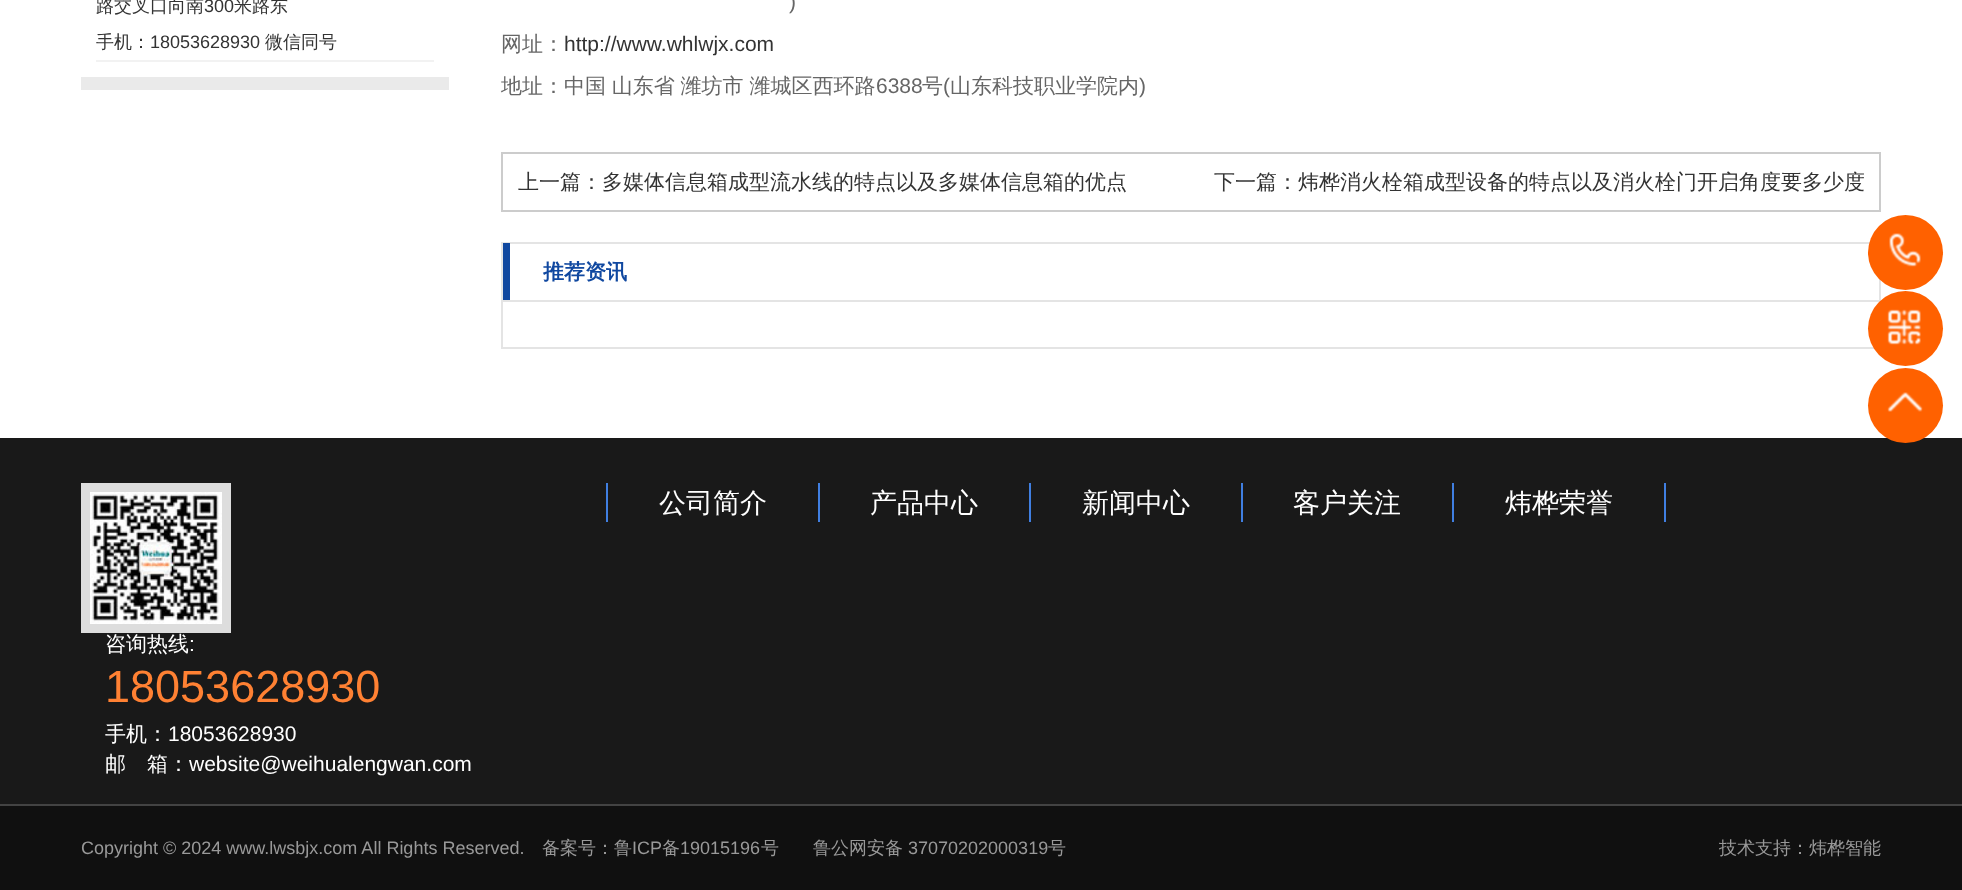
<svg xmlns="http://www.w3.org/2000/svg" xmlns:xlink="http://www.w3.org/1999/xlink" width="1962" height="890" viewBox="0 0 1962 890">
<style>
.cls-1{font:500 18px WenQuanYi Zen Hei;fill:#333333}
.cls-2{font:18px Liberation Sans;fill:#333333}
.cls-3{font:21px Liberation Sans;fill:#666666}
.cls-4{font:500 21px WenQuanYi Zen Hei;fill:#666666}
.cls-5{font:21px Liberation Sans;fill:#333333}
.cls-6{font:500 21px WenQuanYi Zen Hei;fill:#333333}
.cls-7{font:bold 21px WenQuanYi Zen Hei;fill:#1048a0}
.cls-8{font:500 27px WenQuanYi Zen Hei;fill:#ffffff}
.cls-9{font:500 21px WenQuanYi Zen Hei;fill:#ffffff}
.cls-10{font:21px Liberation Sans;fill:#ffffff}
.cls-11{font:45px Liberation Sans;fill:#ff8133}
.cls-12{font:18px Liberation Sans;fill:#999999}
.cls-13{font:500 18px WenQuanYi Zen Hei;fill:#999999}
</style>
<rect width="100%" height="100%" fill="#ffffff"/>
<rect fill="#eaeaea" x="81" y="77" width="368" height="13"/>
<rect fill="#f2f2f2" x="96" y="60" width="338" height="2"/>
<rect fill="none" stroke="#cccccc" stroke-width="2" x="502" y="153" width="1378" height="58"/>
<rect fill="none" stroke="#e4e4e4" stroke-width="2" x="502" y="243" width="1378" height="58"/>
<rect fill="#1048a0" x="503" y="243" width="7" height="57"/>
<rect fill="#e4e4e4" x="501" y="347" width="1380" height="2"/>
<rect fill="#e4e4e4" x="501" y="302" width="2" height="46"/>
<circle fill="#ff6100" cx="1905.5" cy="252.5" r="37.5"/>
<image xlink:href="image0.png" x="1889" y="233" width="32" height="34"/>
<circle fill="#ff6100" cx="1905.5" cy="328.5" r="37.5"/>
<image xlink:href="image1.png" x="1887" y="309" width="34" height="36"/>
<rect fill="#191919" x="0" y="438" width="1962" height="366"/>
<circle fill="#ff6100" cx="1905.5" cy="405.5" r="37.5"/>
<image xlink:href="image2.png" x="1887" y="392" width="36" height="20"/>
<rect fill="#407fe1" x="818" y="483" width="2" height="39"/>
<rect fill="#407fe1" x="606" y="483" width="2" height="39"/>
<rect fill="#407fe1" x="1029" y="483" width="2" height="39"/>
<rect fill="#407fe1" x="1241" y="483" width="2" height="39"/>
<rect fill="#407fe1" x="1452" y="483" width="2" height="39"/>
<rect fill="#407fe1" x="1664" y="483" width="2" height="39"/>
<rect fill="#dddddd" x="81" y="483" width="150" height="150"/>
<image xlink:href="image3.png" x="90" y="492" width="132" height="132"/>
<rect fill="#101010" x="0" y="806" width="1962" height="84"/>
<rect fill="#434343" x="0" y="804" width="1962" height="2"/>
<text class="cls-1" x="96" y="12">路交叉口向南</text>
<text class="cls-2" x="204" y="12">300</text>
<text class="cls-1" x="234" y="12">米路东</text>
<text class="cls-1" x="96" y="48">手机：</text>
<text class="cls-2" x="150" y="48">18053628930</text>
<text class="cls-1" x="265" y="48">微信同号</text>
<text class="cls-3" x="789" y="9">)</text>
<text class="cls-4" x="501" y="51">网址：</text>
<text class="cls-5" x="564" y="51">http://www.whlwjx.com</text>
<text class="cls-4" x="501" y="93" word-spacing="-0.5">地址：中国 山东省 潍坊市 潍城区西环路</text>
<text class="cls-3" x="876" y="93">6388</text>
<text class="cls-4" x="922" y="93">号</text>
<text class="cls-3" x="943" y="93">(</text>
<text class="cls-4" x="950" y="93">山东科技职业学院内</text>
<text class="cls-3" x="1139" y="93">)</text>
<text class="cls-6" x="518" y="189">上一篇：多媒体信息箱成型流水线的特点以及多媒体信息箱的优点</text>
<text class="cls-6" x="1214" y="189">下一篇：炜桦消火栓箱成型设备的特点以及消火栓门开启角度要多少度</text>
<text class="cls-7" x="543" y="279">推荐资讯</text>
<text class="cls-8" x="659" y="512">公司简介</text>
<text class="cls-8" x="870" y="512">产品中心</text>
<text class="cls-8" x="1082" y="512">新闻中心</text>
<text class="cls-8" x="1293" y="512">客户关注</text>
<text class="cls-8" x="1505" y="512">炜桦荣誉</text>
<text class="cls-9" x="105" y="651">咨询热线</text>
<text class="cls-10" x="189" y="651">:</text>
<text class="cls-11" x="105" y="702">18053628930</text>
<text class="cls-9" x="105" y="741">手机：</text>
<text class="cls-10" x="168" y="741">18053628930</text>
<text class="cls-9" x="105" y="771">邮　箱：</text>
<text class="cls-10" x="189" y="771">website@weihualengwan.com</text>
<text class="cls-12" x="81" y="854">Copyright © 2024 www.lwsbjx.com All Rights Reserved.</text>
<text class="cls-13" x="542" y="854">备案号：鲁</text>
<text class="cls-12" x="632" y="854">ICP</text>
<text class="cls-13" x="662" y="854">备</text>
<text class="cls-12" x="680" y="854">19015196</text>
<text class="cls-13" x="761" y="854">号</text>
<text class="cls-13" x="813" y="854">鲁公网安备</text>
<text class="cls-12" x="908" y="854">37070202000319</text>
<text class="cls-13" x="1048" y="854">号</text>
<text class="cls-13" x="1719" y="854">技术支持：炜桦智能</text>
</svg>
